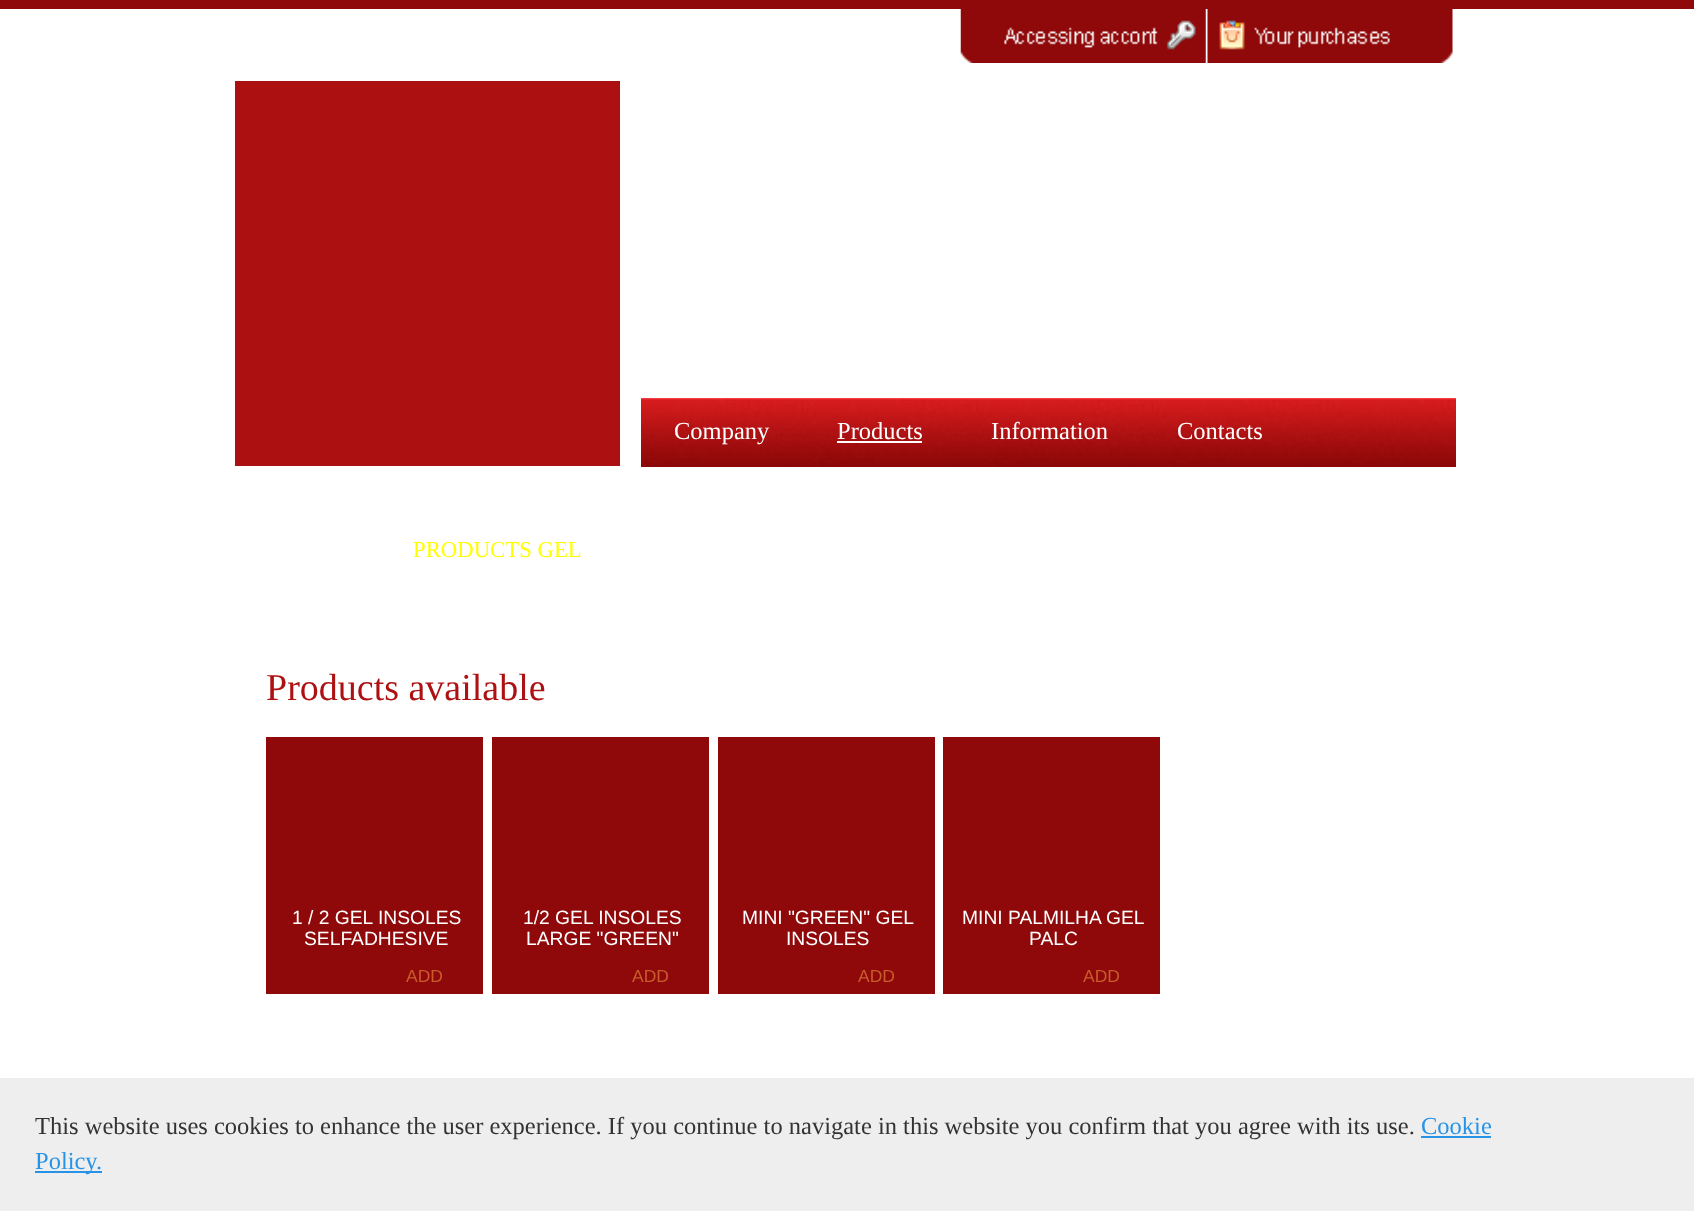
<svg xmlns="http://www.w3.org/2000/svg" xmlns:xlink="http://www.w3.org/1999/xlink" width="1694" height="1211" viewBox="0 0 1694 1211">
<style>
.cls-1{font:24.5px Liberation Serif;fill:#ffffff}
.cls-2{font:22.75px Liberation Serif;fill:#ffff00}
.cls-3{font:38px Liberation Serif;fill:#ad1112}
.cls-4{font:19.25px Liberation Sans;fill:#ffffff}
.cls-5{font:17.5px Liberation Sans;fill:#c85c2b}
.cls-6{font:24.5px Liberation Serif;fill:#333333}
.cls-7{font:24.5px Liberation Serif;fill:#2793e6}
</style>
<rect width="100%" height="100%" fill="#ffffff"/>
<rect fill="#8f090a" x="0" y="0" width="1694" height="9"/>
<image xlink:href="image0.png" x="960" y="9" width="246" height="54"/>
<image xlink:href="image1.png" x="1207" y="9" width="246" height="54"/>
<rect fill="#ad1011" x="235" y="81" width="385" height="385"/>
<image xlink:href="image2.png" x="641" y="398" width="815" height="69"/>
<rect fill="#ffffff" x="837" y="441" width="85" height="2"/>
<rect fill="#8f090a" x="266" y="737" width="217" height="257"/>
<rect fill="#8f090a" x="492" y="737" width="217" height="257"/>
<rect fill="#8f090a" x="718" y="737" width="217" height="257"/>
<rect fill="#8f090a" x="943" y="737" width="217" height="257"/>
<rect fill="#eeeeee" x="0" y="1078" width="1694" height="133"/>
<rect fill="#2793e6" x="1421" y="1136" width="70" height="2"/>
<rect fill="#2793e6" x="35" y="1171" width="67" height="2"/>
<text class="cls-1" x="674" y="439">Company</text>
<text class="cls-1" x="837" y="439">Products</text>
<text class="cls-1" x="991" y="439">Information</text>
<text class="cls-1" x="1177" y="439">Contacts</text>
<text class="cls-2" x="413" y="557">PRODUCTS GEL</text>
<text class="cls-3" x="266" y="700">Products available</text>
<text class="cls-4" x="292" y="924">1 / 2 GEL INSOLES</text>
<text class="cls-4" x="304" y="945">SELFADHESIVE</text>
<text class="cls-5" x="406" y="982">ADD</text>
<text class="cls-4" x="523" y="924">1/2 GEL INSOLES</text>
<text class="cls-4" x="526" y="945">LARGE "GREEN"</text>
<text class="cls-5" x="632" y="982">ADD</text>
<text class="cls-4" x="742" y="924">MINI "GREEN" GEL</text>
<text class="cls-4" x="786" y="945">INSOLES</text>
<text class="cls-5" x="858" y="982">ADD</text>
<text class="cls-4" x="962" y="924">MINI PALMILHA GEL</text>
<text class="cls-4" x="1029" y="945">PALC</text>
<text class="cls-5" x="1083" y="982">ADD</text>
<text class="cls-6" x="35" y="1134">This website uses cookies to enhance the user experience. If you continue to navigate in this website you confirm that you agree with its use.</text>
<text class="cls-7" x="1421" y="1134">Cookie</text>
<text class="cls-7" x="35" y="1169">Policy.</text>
</svg>
